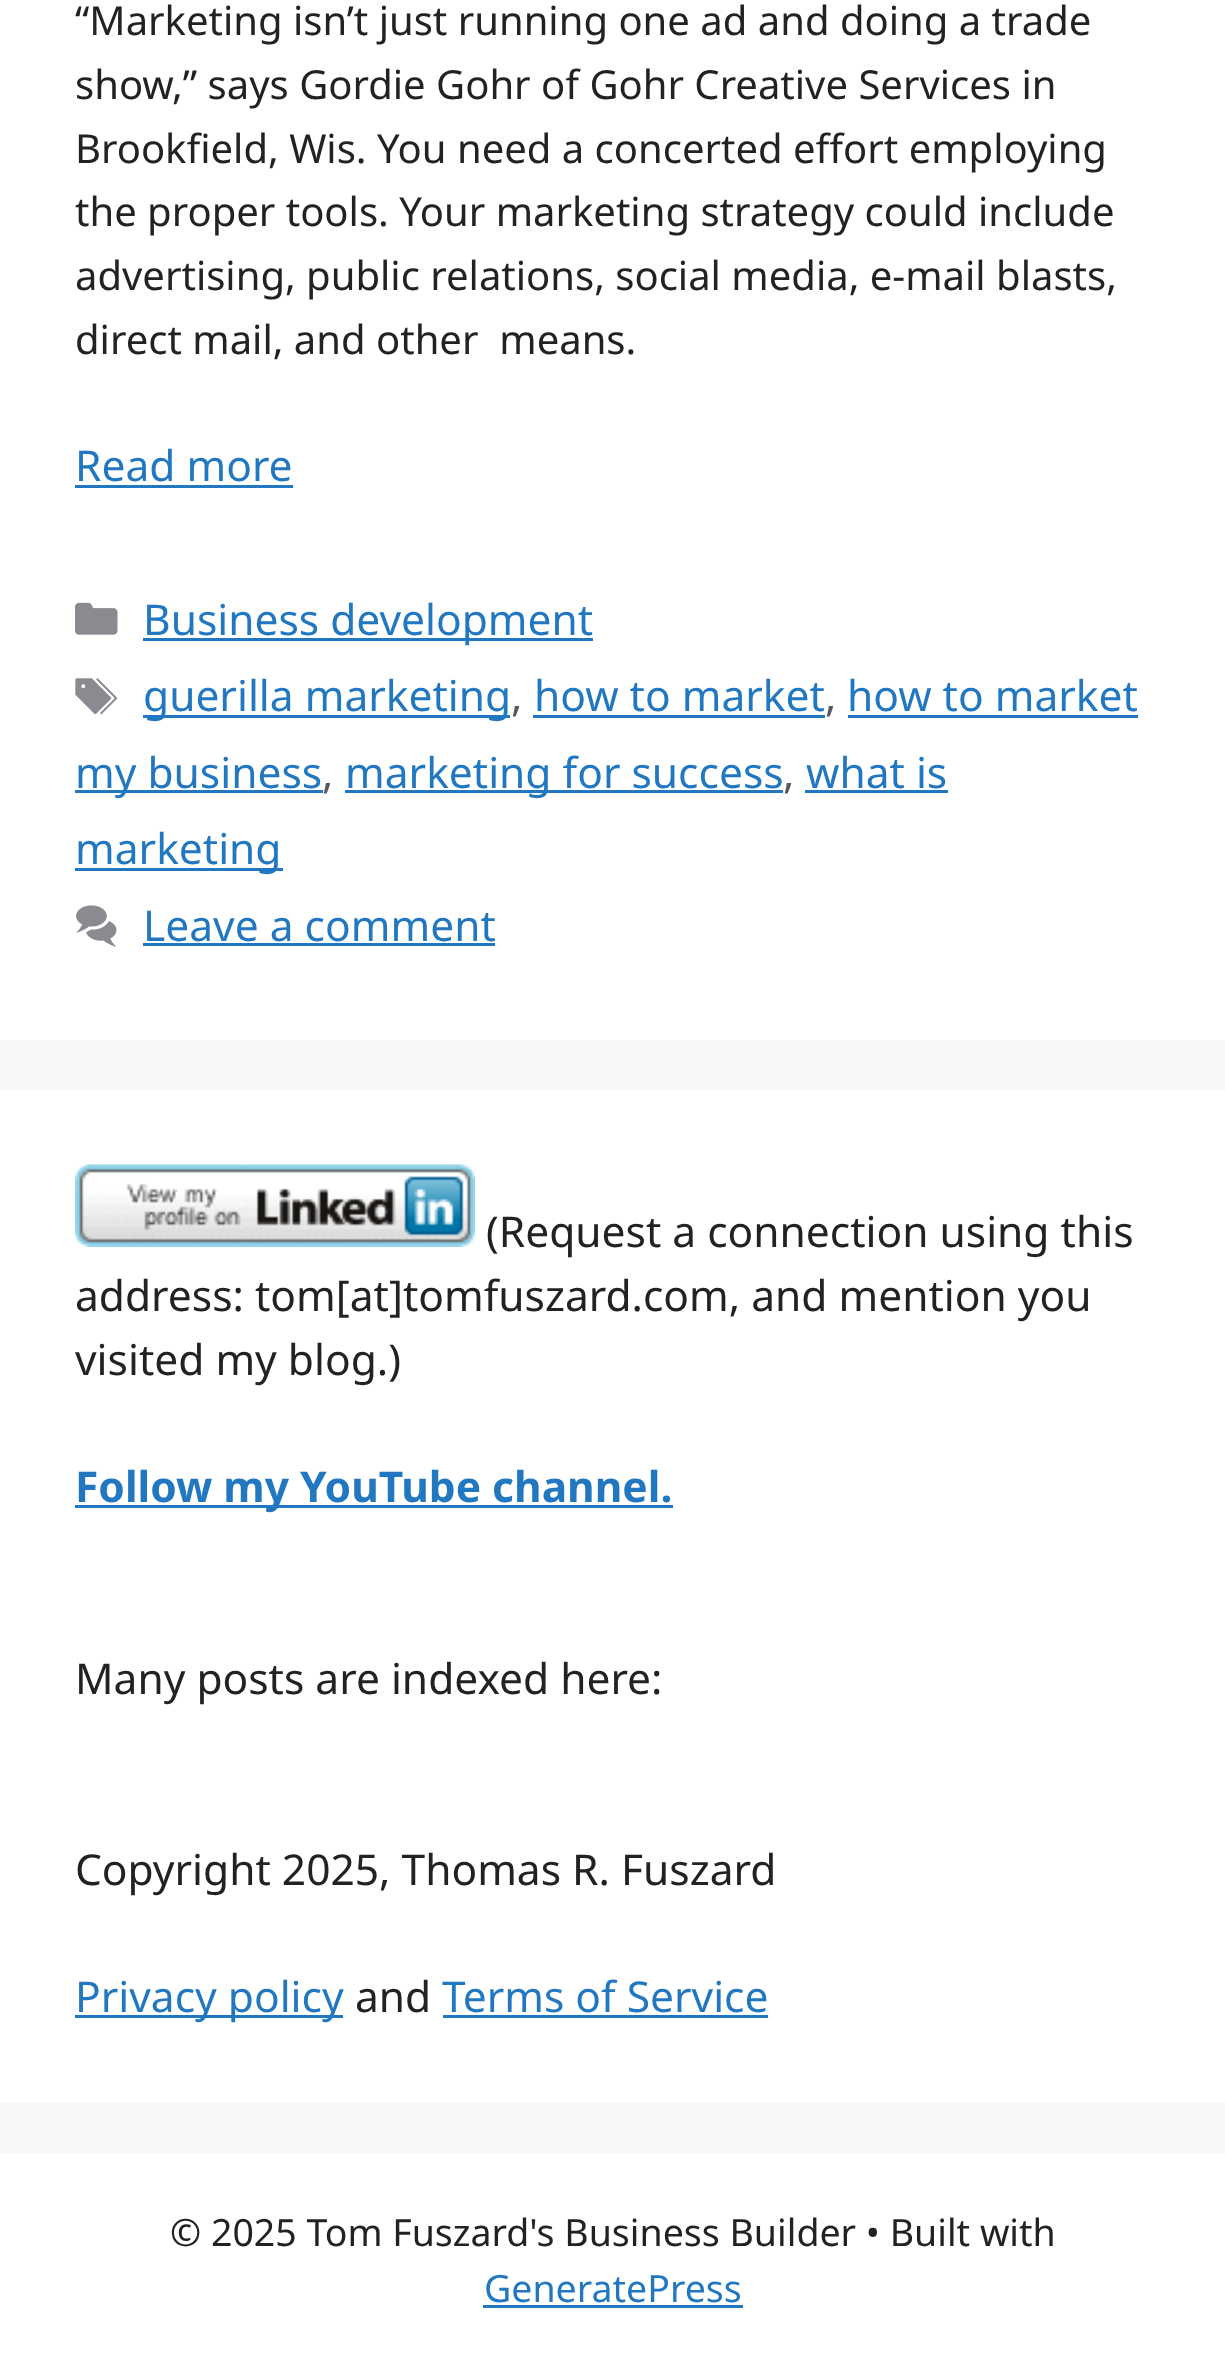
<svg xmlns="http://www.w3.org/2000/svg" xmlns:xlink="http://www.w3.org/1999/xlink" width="1225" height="2365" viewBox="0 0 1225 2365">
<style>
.cls-1{font:40px Noto Sans;fill:#222222}
.cls-2{font:42.5px Noto Sans;fill:#2277c1}
.cls-3{font:42.5px Noto Sans;fill:#575760}
.cls-4{font:42.5px Noto Sans;fill:#222222}
.cls-5{font:bold 42.5px Noto Sans;fill:#2277c1}
.cls-6{font:37.5px Noto Sans;fill:#222222}
.cls-7{font:37.5px Noto Sans;fill:#2277c1}
</style>
<rect width="100%" height="100%" fill="#f7f8f9"/>
<rect fill="#ffffff" x="0" y="0" width="1225" height="1040"/>
<rect fill="#2277c1" x="75" y="485" width="218" height="3"/>
<image xlink:href="image0.png" x="75" y="602" width="43" height="33"/>
<rect fill="#2277c1" x="143" y="638" width="450" height="3"/>
<image xlink:href="image1.png" x="75" y="678" width="43" height="37"/>
<rect fill="#2277c1" x="143" y="715" width="367" height="3"/>
<rect fill="#2277c1" x="533" y="715" width="292" height="3"/>
<rect fill="#2277c1" x="848" y="715" width="290" height="3"/>
<rect fill="#2277c1" x="75" y="790" width="248" height="3"/>
<rect fill="#2277c1" x="345" y="790" width="438" height="3"/>
<rect fill="#2277c1" x="805" y="790" width="143" height="3"/>
<rect fill="#2277c1" x="75" y="868" width="208" height="3"/>
<image xlink:href="image2.png" x="76" y="905" width="41" height="42"/>
<rect fill="#2277c1" x="143" y="943" width="352" height="3"/>
<rect fill="#ffffff" x="0" y="1090" width="1225" height="1013"/>
<image xlink:href="image3.png" x="75" y="1164" width="400" height="83"/>
<rect fill="#2277c1" x="75" y="1505" width="598" height="3"/>
<rect fill="#2277c1" x="75" y="2015" width="268" height="3"/>
<rect fill="#2277c1" x="443" y="2015" width="325" height="3"/>
<rect fill="#ffffff" x="0" y="2153" width="1225" height="212"/>
<rect fill="#2277c1" x="483" y="2305" width="260" height="3"/>
<text class="cls-1" xml:space="preserve"><tspan x="75" y="35">“Marketing isn’t just running one ad and doing a trade</tspan><tspan x="75" y="99">show,” says Gordie Gohr of Gohr Creative Services in</tspan><tspan x="75" y="163">Brookfield, Wis. You need a concerted effort employing</tspan><tspan x="75" y="226">the proper tools. Your marketing strategy could include</tspan><tspan x="75" y="290">advertising, public relations, social media, e-mail blasts,</tspan><tspan x="75" y="354">direct mail, and other  means.</tspan></text>
<text class="cls-2" x="75" y="481">Read more</text>
<text class="cls-2"><tspan x="143" y="635">Business development</tspan><tspan x="143" y="711">guerilla marketing</tspan></text>
<text class="cls-3" x="511" y="711">,</text>
<text class="cls-2" x="534" y="711">how to market</text>
<text class="cls-3" x="825" y="711">,</text>
<text class="cls-2" x="847" y="711">how to market</text>
<text class="cls-2" x="75" y="788">my business</text>
<text class="cls-3" x="322" y="788">,</text>
<text class="cls-2" x="345" y="788">marketing for success</text>
<text class="cls-3" x="783" y="788">,</text>
<text class="cls-2" x="806" y="788">what is</text>
<text class="cls-2" x="75" y="864">marketing</text>
<text class="cls-2" x="143" y="941">Leave a comment</text>
<text class="cls-4" x="486" y="1247">(Request a connection using this</text>
<text class="cls-4"><tspan x="75" y="1311">address: tom[at]tomfuszard.com, and mention you</tspan><tspan x="75" y="1375">visited my blog.)</tspan></text>
<text class="cls-5" x="75" y="1502">Follow my YouTube channel.</text>
<text class="cls-4" x="75" y="1694">Many posts are indexed here:</text>
<text class="cls-4" x="75" y="1885">Copyright 2025, Thomas R. Fuszard</text>
<text class="cls-2" x="75" y="2012">Privacy policy</text>
<text class="cls-4" x="355" y="2012">and</text>
<text class="cls-2" x="442" y="2012">Terms of Service</text>
<text class="cls-6" x="170" y="2246">© 2025 Tom Fuszard's Business Builder • Built with</text>
<text class="cls-7" x="484" y="2302">GeneratePress</text>
</svg>
